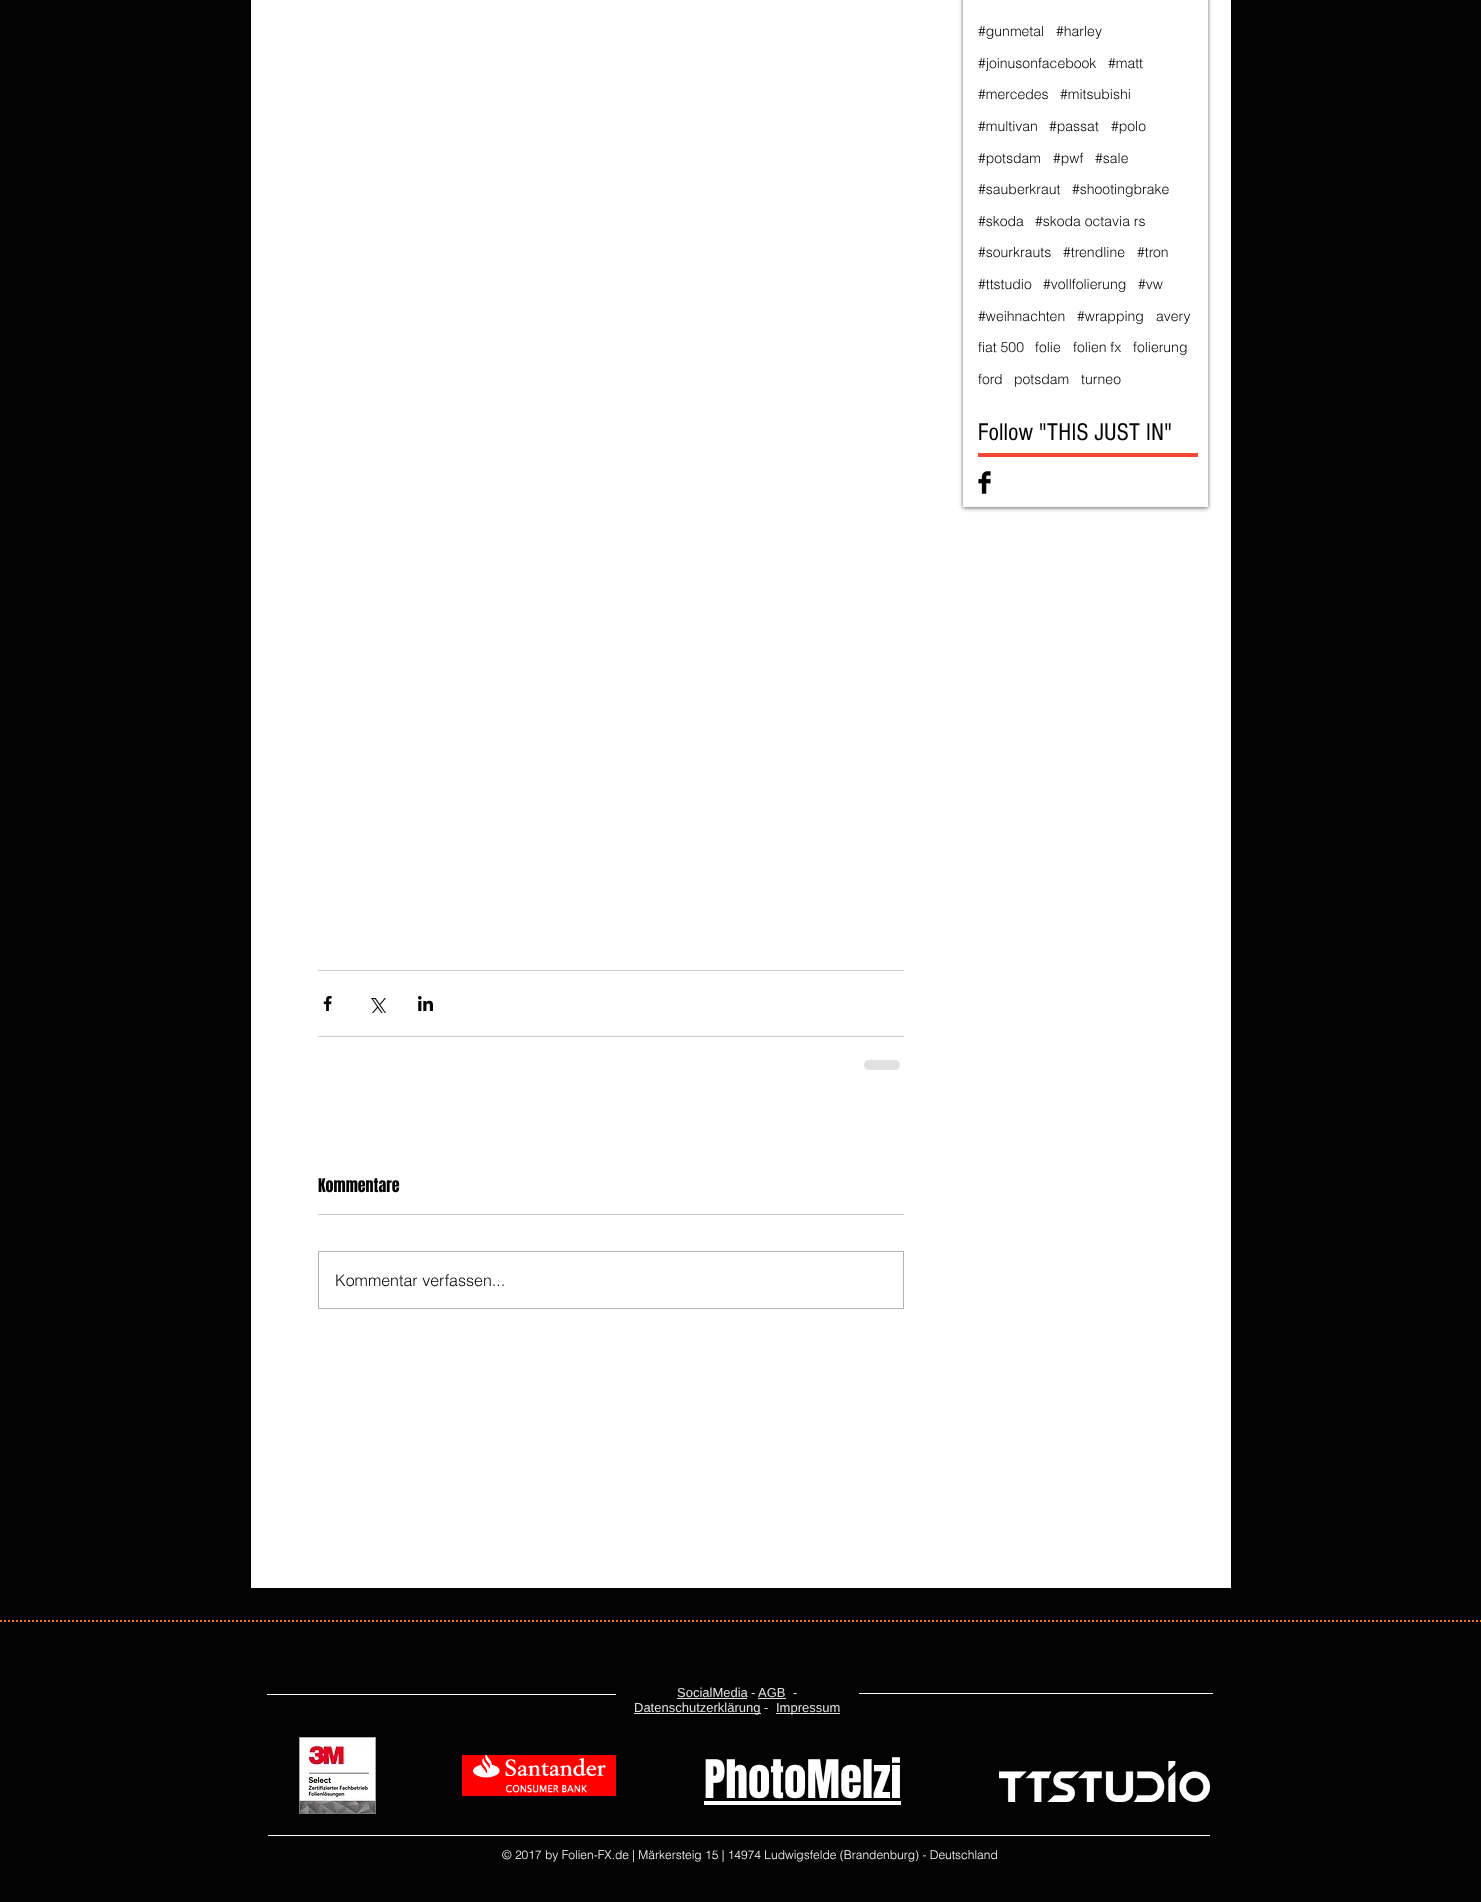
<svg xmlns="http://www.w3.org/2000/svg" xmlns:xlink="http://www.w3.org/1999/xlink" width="1481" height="1902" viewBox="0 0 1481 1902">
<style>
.cls-1{font:300 14px helvetica;fill:#030303}
.cls-2{font:25px 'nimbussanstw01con';fill:#030303}
.cls-3{font:16px Anton;fill:#030303}
.cls-4{font:300 16px helvetica;fill:#030303}
.cls-5{font:13px Liberation Sans;fill:#e2dfdf}
.cls-6{font:45px Anton;fill:#ffffff}
.cls-7{font:300 12px helvetica;fill:#ffffff}
</style>
<defs>
<clipPath id="clip1"><path d="M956 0H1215V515H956ZM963-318H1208V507H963Z" clip-rule="evenodd"/></clipPath>
</defs>
<rect width="100%" height="100%" fill="#030303"/>
<rect fill="#ffffff" x="251" y="0" width="980" height="1588"/>
<g clip-path="url(#clip1)">
<rect fill="#000000" fill-opacity="0.6" filter="blur(2px)" x="963" y="-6" width="245" height="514"/>
</g>
<rect fill="#f84738" x="978" y="453" width="220" height="4"/>
<image xlink:href="image0.png" x="978" y="471" width="13" height="23"/>
<rect fill="#cdcdcd" x="318" y="970" width="586" height="1"/>
<image xlink:href="image1.png" x="323" y="996" width="9" height="15"/>
<image xlink:href="image2.png" x="371" y="998" width="15" height="15"/>
<image xlink:href="image3.png" x="418" y="996" width="15" height="15"/>
<rect fill="#cdcdcd" x="318" y="1036" width="586" height="1"/>
<rect fill="#e1e1e1" x="864" y="1060" width="36" height="10" rx="5"/>
<rect fill="#cdcdcd" x="318" y="1214" width="586" height="1"/>
<rect fill="none" stroke="#b3b3b3" x="318.5" y="1251.5" width="585" height="57"/>
<path fill="none" stroke="#ec7619" stroke-width="2" stroke-dasharray="2 2" d="M0 1621H1481"/>
<rect fill="#e2dfdf" x="677" y="1698" width="70" height="1"/>
<rect fill="#e2dfdf" x="758" y="1698" width="28" height="1"/>
<rect fill="#e2dfdf" x="634" y="1713" width="127" height="1"/>
<rect fill="#e2dfdf" x="776" y="1713" width="64" height="1"/>
<rect fill="#ffffff" x="859" y="1693" width="354" height="1"/>
<rect fill="#ffffff" x="267" y="1694" width="349" height="1"/>
<image xlink:href="image4.png" x="299" y="1737" width="77" height="77"/>
<image xlink:href="image5.png" x="462" y="1755" width="154" height="41"/>
<rect fill="#ffffff" x="704" y="1801" width="197" height="4"/>
<image xlink:href="image6.png" x="999" y="1761" width="211" height="41"/>
<rect fill="#ffffff" x="268" y="1835" width="942" height="1"/>
<text class="cls-1" x="978" y="36">#gunmetal</text>
<text class="cls-1" x="1056" y="36">#harley</text>
<text class="cls-1" x="978" y="68">#joinusonfacebook</text>
<text class="cls-1" x="1108" y="68">#matt</text>
<text class="cls-1" x="978" y="99">#mercedes</text>
<text class="cls-1" x="1060" y="99">#mitsubishi</text>
<text class="cls-1" x="978" y="131">#multivan</text>
<text class="cls-1" x="1049" y="131">#passat</text>
<text class="cls-1" x="1111" y="131">#polo</text>
<text class="cls-1" x="978" y="163">#potsdam</text>
<text class="cls-1" x="1053" y="163">#pwf</text>
<text class="cls-1" x="1095" y="163">#sale</text>
<text class="cls-1" x="978" y="194">#sauberkraut</text>
<text class="cls-1" x="1072" y="194">#shootingbrake</text>
<text class="cls-1" x="978" y="226">#skoda</text>
<text class="cls-1" x="1035" y="226">#skoda octavia rs</text>
<text class="cls-1" x="978" y="257">#sourkrauts</text>
<text class="cls-1" x="1063" y="257">#trendline</text>
<text class="cls-1" x="1137" y="257">#tron</text>
<text class="cls-1" x="978" y="289">#ttstudio</text>
<text class="cls-1" x="1043" y="289">#vollfolierung</text>
<text class="cls-1" x="1138" y="289">#vw</text>
<text class="cls-1" x="978" y="321">#weihnachten</text>
<text class="cls-1" x="1077" y="321">#wrapping</text>
<text class="cls-1" x="1156" y="321">avery</text>
<text class="cls-1" x="978" y="352">fiat 500</text>
<text class="cls-1" x="1035" y="352">folie</text>
<text class="cls-1" x="1073" y="352">folien fx</text>
<text class="cls-1" x="1133" y="352">folierung</text>
<text class="cls-1" x="978" y="384">ford</text>
<text class="cls-1" x="1014" y="384">potsdam</text>
<text class="cls-1" x="1081" y="384">turneo</text>
<text class="cls-2" x="978" y="440">Follow "THIS JUST IN"</text>
<text class="cls-3" x="318" y="1192">Kommentare</text>
<text class="cls-4" x="335" y="1286">Kommentar verfassen...</text>
<text class="cls-5" x="677" y="1697">SocialMedia</text>
<text class="cls-5" x="751" y="1697">-</text>
<text class="cls-5" x="758" y="1697">AGB</text>
<text class="cls-5" x="793" y="1697">-</text>
<text class="cls-5" x="634" y="1712">Datenschutzerklärung -</text>
<text class="cls-5" x="776" y="1712">Impressum</text>
<text class="cls-6" x="704" y="1798">PhotoMelzi</text>
<text class="cls-7" x="502" y="1859">© 2017 by Folien-FX.de | Märkersteig 15 | 14974 Ludwigsfelde (Brandenburg) - Deutschland</text>
</svg>
